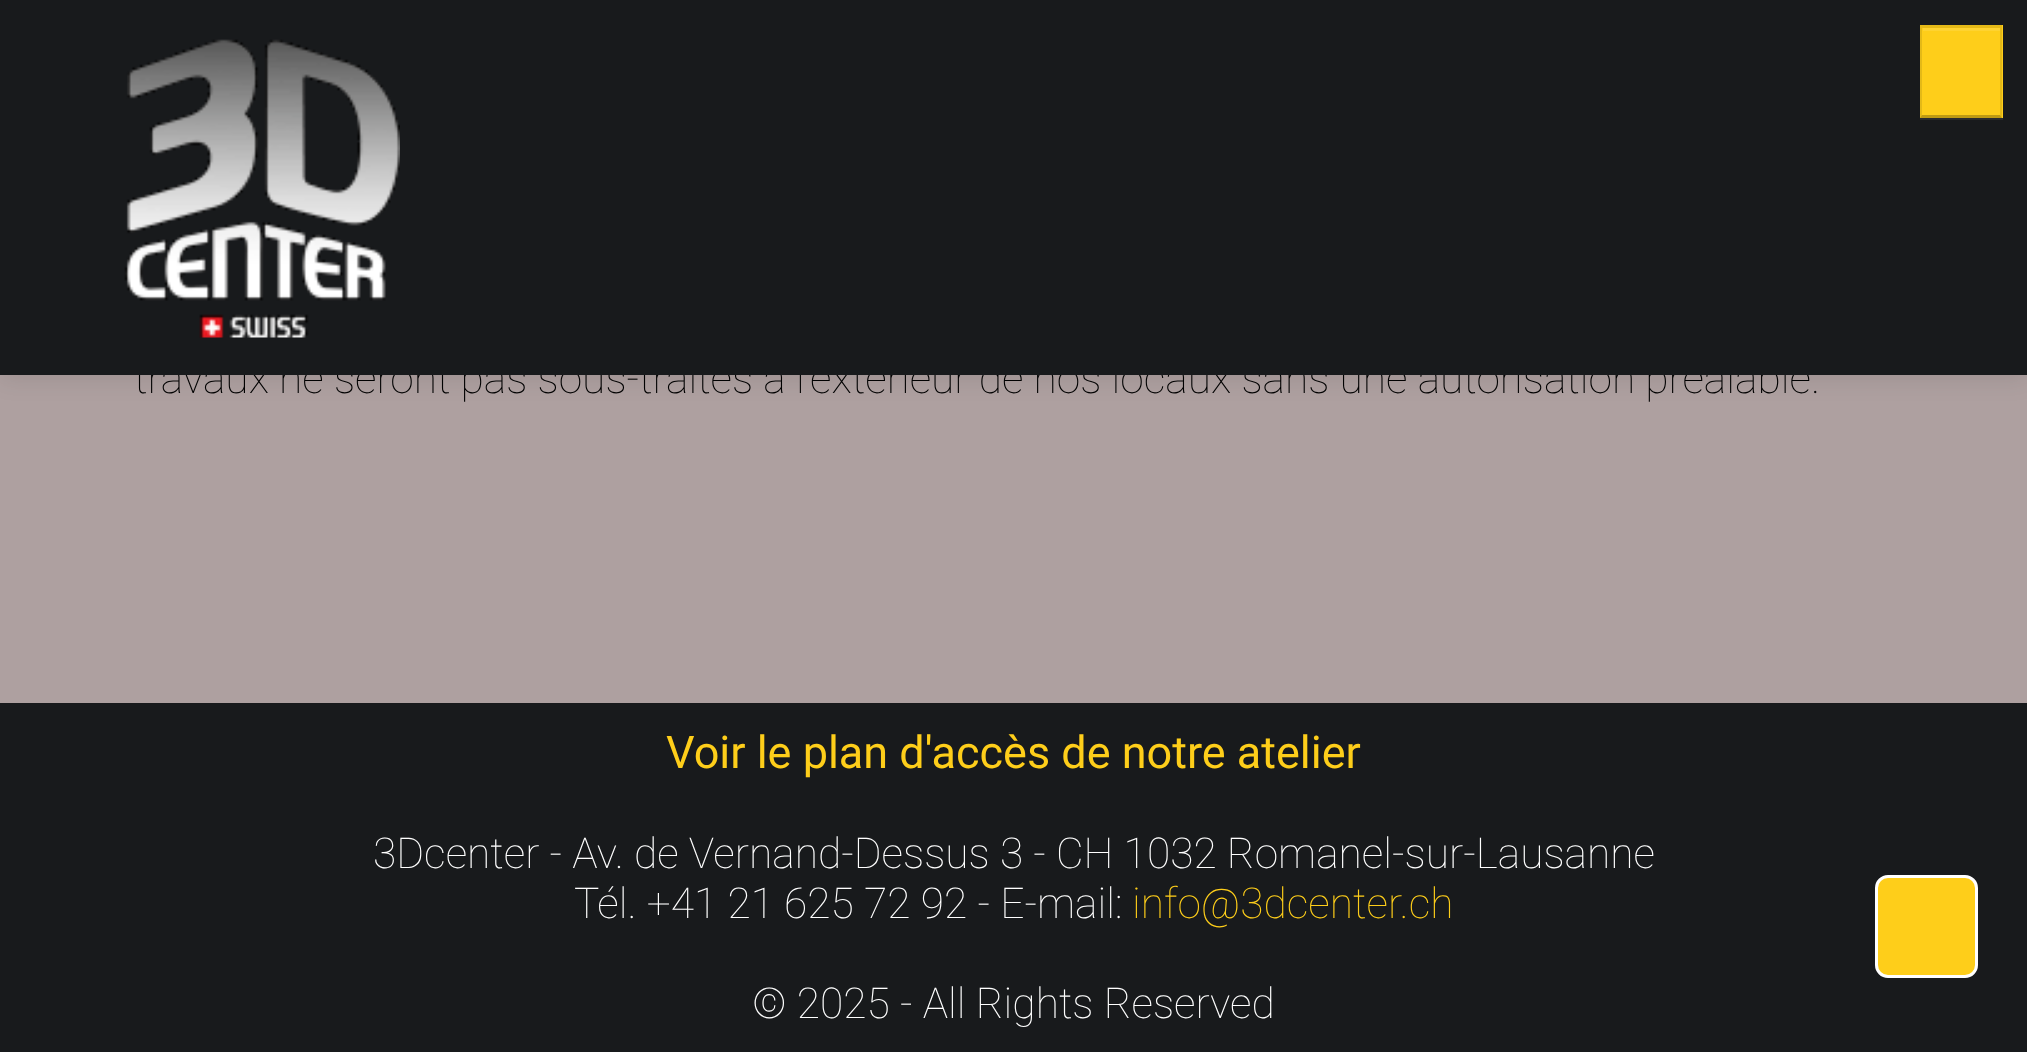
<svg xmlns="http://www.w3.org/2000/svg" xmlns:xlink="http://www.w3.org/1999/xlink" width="2027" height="1052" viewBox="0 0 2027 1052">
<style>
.cls-1{font:100 42.5px Roboto;fill:#000000}
.cls-2{font:45px Roboto;fill:#fece1a}
.cls-3{font:100 42.5px Roboto;fill:#ffffff}
.cls-4{font:100 42.5px Roboto;fill:#fece1a}
</style>
<rect width="100%" height="100%" fill="#aea0a0"/>
<rect fill="#000000" fill-opacity="0.1" filter="blur(12.5px)" x="0" y="3" width="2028" height="375"/>
<rect fill="#181a1c" x="0" y="703" width="2027" height="349"/>
<rect fill="#fece1a" stroke="#ffffff" stroke-width="3" x="1876.5" y="876.5" width="100" height="100" rx="11.5"/>
<text class="cls-1" x="134" y="393">travaux ne seront pas sous-traités à l’extérieur de nos locaux sans une autorisation préalable.</text>
<rect fill="#181a1c" x="0" y="0" width="2027" height="375"/>
<path fill="#292b2d" d="M1920 118V120H2003V28H2002V118Z"/>
<rect fill="#fece1a" x="1920" y="25" width="83" height="93"/>
<path fill="#e5b917" d="M1920 25H2002L2000 28H1922Z"/>
<path fill="#000000" fill-opacity="0.1" d="M2002 25V118L2000 115V28Z"/>
<path fill="#000000" fill-opacity="0.25" d="M2002 118H1920L1922 115H2000Z"/>
<path fill="#000000" fill-opacity="0.1" d="M1920 118V25L1922 28V115Z"/>
<rect fill="#fed331" x="1923" y="28" width="77" height="3"/>
<image xlink:href="image0.png" x="124" y="39" width="276" height="299"/>
<text class="cls-2" x="666" y="768">Voir le plan d'accès de notre atelier</text>
<text class="cls-3" x="373" y="868">3Dcenter - Av. de Vernand-Dessus 3 - CH 1032 Romanel-sur-Lausanne</text>
<text class="cls-3" x="574" y="918">Tél. +41 21 625 72 92 - E-mail:</text>
<text class="cls-4" x="1132" y="918">info@3dcenter.ch</text>
<text class="cls-3" x="752" y="1018">© 2025 - All Rights Reserved</text>
</svg>
